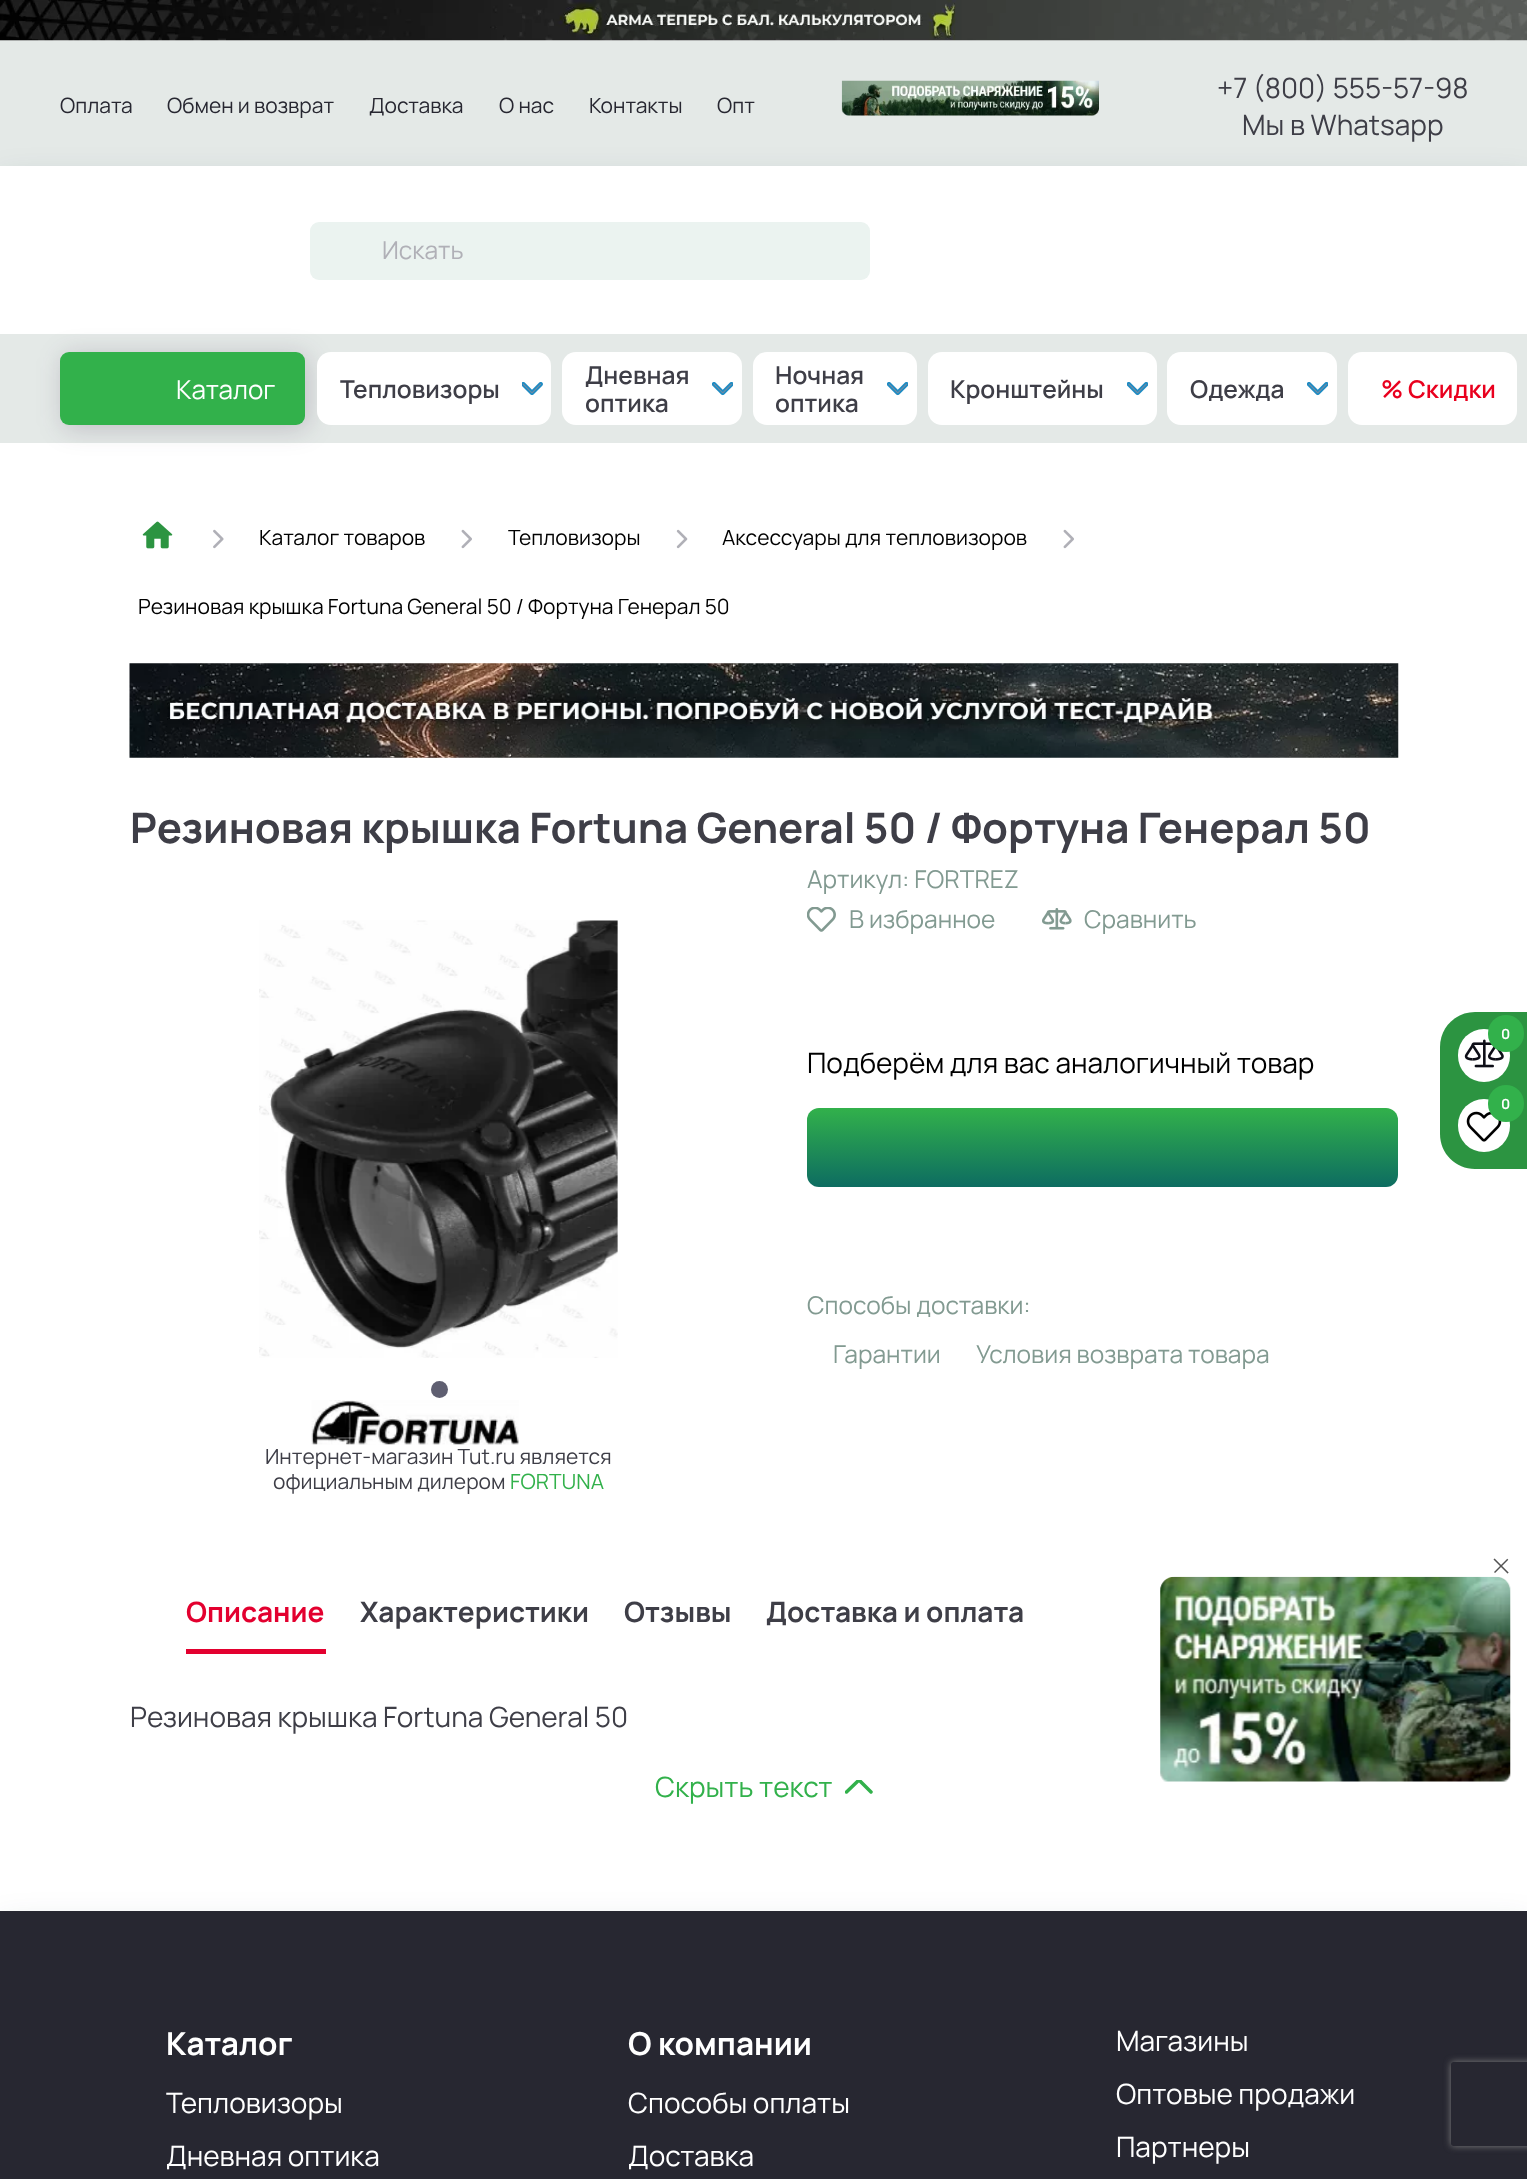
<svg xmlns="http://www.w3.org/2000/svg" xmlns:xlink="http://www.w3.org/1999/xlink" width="1527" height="2179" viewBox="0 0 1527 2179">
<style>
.cls-1{font:21px Manrope;fill:#272731}
.cls-2{font:28px Manrope;fill:#3e3e47}
.cls-3{font:24.5px Manrope;fill:#b0b0b7}
.cls-4{font:26px Manrope;fill:#ffffff}
.cls-5{font:600 24.5px Manrope;fill:#3e3e47}
.cls-6{font:600 24.5px Manrope;fill:#e9001e}
.cls-7{font:21px Manrope;fill:#000000}
.cls-8{font:bold 42px Manrope;fill:#3e3e47}
.cls-9{font:24.5px Manrope;fill:#829a91}
.cls-10{font:28px Manrope;fill:#000000}
.cls-11{font:21px Manrope;fill:#3e3e47}
.cls-12{font:21px Manrope;fill:#32b14b}
.cls-13{font:bold 28px Manrope;fill:#e3002f}
.cls-14{font:bold 28px Manrope;fill:#3e3e47}
.cls-15{font:28px Manrope;fill:#32b14b}
.cls-16{font:bold 14px Manrope;fill:#ffffff}
.cls-17{font:bold 31.5px Manrope;fill:#ffffff}
.cls-18{font:28px Manrope;fill:#ffffff}
</style>
<defs>
<linearGradient id="g1" gradientUnits="userSpaceOnUse" x1="1103" y1="1108" x2="1103" y2="1187"><stop offset="0" stop-color="#32b14b"/><stop offset="1" stop-color="#0d6c61"/></linearGradient>
<clipPath id="clip1"><rect x="845" y="1780" width="28" height="16"/></clipPath>
<clipPath id="clip2"><path d="M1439 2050H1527V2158H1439ZM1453.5 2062H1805.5C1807 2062 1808 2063 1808 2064.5V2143.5C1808 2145 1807 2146 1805.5 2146H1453.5C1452 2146 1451 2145 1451 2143.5V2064.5C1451 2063 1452 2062 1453.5 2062Z" clip-rule="evenodd"/></clipPath>
</defs>
<rect width="100%" height="100%" fill="#ffffff"/>
<rect fill="#e4e9e7" x="0" y="40" width="1527" height="126"/>
<image xlink:href="image0.png" x="0" y="0" width="1527" height="41"/>
<image xlink:href="image1.png" x="841" y="80" width="258" height="36"/>
<rect fill="#0d253c" fill-opacity="0.2" filter="blur(17.5px)" x="0" y="184" width="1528" height="168"/>
<rect fill="#ffffff" x="0" y="166" width="1527" height="168"/>
<rect fill="#ebf3f0" x="310" y="222" width="560" height="58" rx="9"/>
<rect fill="#e4e9e7" x="0" y="334" width="1527" height="109"/>
<rect fill="#321e41" fill-opacity="0.2" filter="blur(13px)" x="63" y="355" width="245" height="74" rx="9"/>
<rect fill="#32b14b" x="60" y="352" width="245" height="73" rx="9"/>
<rect fill="#ffffff" x="317" y="352" width="234" height="73" rx="14"/>
<image xlink:href="image2.png" x="522" y="382" width="21" height="13"/>
<rect fill="#ffffff" x="562" y="352" width="180" height="73" rx="14"/>
<image xlink:href="image3.png" x="712" y="382" width="21" height="14"/>
<rect fill="#ffffff" x="753" y="352" width="164" height="73" rx="14"/>
<image xlink:href="image3.png" x="887" y="382" width="21" height="14"/>
<rect fill="#ffffff" x="928" y="352" width="229" height="73" rx="14"/>
<image xlink:href="image4.png" x="1127" y="382" width="21" height="14"/>
<rect fill="#ffffff" x="1167" y="352" width="170" height="73" rx="14"/>
<image xlink:href="image3.png" x="1307" y="382" width="21" height="14"/>
<rect fill="#ffffff" x="1348" y="352" width="169" height="73" rx="14"/>
<image xlink:href="image5.png" x="142" y="521" width="31" height="28"/>
<image xlink:href="image6.png" x="213" y="529" width="11" height="20"/>
<image xlink:href="image7.png" x="461" y="529" width="11" height="20"/>
<image xlink:href="image8.png" x="676" y="529" width="12" height="20"/>
<image xlink:href="image7.png" x="1063" y="529" width="11" height="20"/>
<image xlink:href="image9.png" x="129" y="663" width="1270" height="95"/>
<image xlink:href="image10.png" x="807" y="907" width="29" height="25"/>
<image xlink:href="image11.png" x="1042" y="908" width="30" height="22"/>
<rect fill="url(#g1)" x="807" y="1108" width="591" height="79" rx="12"/>
<image xlink:href="image12.png" x="259" y="920" width="359" height="438"/>
<circle fill="#5f5f71" cx="439.5" cy="1389.5" r="8.5"/>
<image xlink:href="image13.png" x="311" y="1400" width="208" height="45"/>
<rect fill="#e3002f" x="186" y="1649" width="140" height="5"/>
<g clip-path="url(#clip1)">
<path fill="none" stroke="#32b14b" stroke-width="3.5" stroke-linecap="round" stroke-linejoin="round" d="M871 1792L859 1780L846.5 1792"/>
</g>
<path fill="#2c9441" d="M1475 1012H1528V1169H1475C1455.5 1169 1440 1153.5 1440 1134V1047C1440 1027.5 1455.5 1012 1475 1012Z"/>
<rect fill="#ffffff" x="1458" y="1029" width="52" height="53" rx="26"/>
<image xlink:href="image14.png" x="1464" y="1039" width="40" height="29"/>
<rect fill="#32b14b" x="1488" y="1015" width="36" height="37" rx="18"/>
<rect fill="#ffffff" x="1458" y="1099" width="52" height="53" rx="26"/>
<image xlink:href="image15.png" x="1466" y="1111" width="36" height="31"/>
<rect fill="#32b14b" x="1488" y="1085" width="36" height="37" rx="18"/>
<image xlink:href="image16.png" x="1493" y="1558" width="16" height="16"/>
<image xlink:href="image17.png" x="1160" y="1576" width="351" height="206"/>
<rect fill="#0d253c" fill-opacity="0.2" filter="blur(17.5px)" x="0" y="1929" width="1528" height="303"/>
<rect fill="#272731" x="0" y="1911" width="1527" height="268"/>
<g clip-path="url(#clip2)">
<rect fill="#808080" filter="blur(3.5px)" x="1451" y="2062" width="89" height="84" rx="2.5"/>
</g>
<text class="cls-1" x="60" y="113">Оплата</text>
<text class="cls-1" x="167" y="113">Обмен и возврат</text>
<text class="cls-1" x="369" y="113">Доставка</text>
<text class="cls-1" x="499" y="113">О нас</text>
<text class="cls-1" x="589" y="113">Контакты</text>
<text class="cls-1" x="717" y="113">Опт</text>
<text class="cls-2" x="1217" y="98">+7 (800) 555-57-98</text>
<text class="cls-2" x="1242" y="135">Мы в Whatsapp</text>
<text class="cls-3" x="382" y="259">Искать</text>
<text class="cls-4" x="176" y="399">Каталог</text>
<text class="cls-5" x="340" y="398">Тепловизоры</text>
<text class="cls-5"><tspan x="585" y="384">Дневная</tspan><tspan x="585" y="412">оптика</tspan></text>
<text class="cls-5"><tspan x="775" y="384">Ночная</tspan><tspan x="775" y="412">оптика</tspan></text>
<text class="cls-5" x="950" y="398">Кронштейны</text>
<text class="cls-5" x="1190" y="398">Одежда</text>
<text class="cls-6" x="1381" y="398">% Скидки</text>
<text class="cls-7" x="259" y="545">Каталог товаров</text>
<text class="cls-7" x="508" y="545">Тепловизоры</text>
<text class="cls-7" x="722" y="545">Аксессуары для тепловизоров</text>
<text class="cls-7" x="138" y="614">Резиновая крышка Fortuna General 50 / Фортуна Генерал 50</text>
<text class="cls-8" x="130" y="843">Резиновая крышка Fortuna General 50 / Фортуна Генерал 50</text>
<text class="cls-9" x="807" y="888">Артикул: FORTREZ</text>
<text class="cls-9" x="849" y="928">В избранное</text>
<text class="cls-9" x="1084" y="928">Сравнить</text>
<text class="cls-10" x="807" y="1073">Подберём для вас аналогичный товар</text>
<text class="cls-9" x="807" y="1314">Способы доставки:</text>
<text class="cls-9" x="833" y="1363">Гарантии</text>
<text class="cls-9" x="976" y="1363">Условия возврата товара</text>
<text class="cls-11" x="265" y="1464">Интернет-магазин Tut.ru является</text>
<text class="cls-11" x="273" y="1489">официальным дилером</text>
<text class="cls-12" x="510" y="1489">FORTUNA</text>
<text class="cls-13" x="186" y="1622">Описание</text>
<text class="cls-14" x="360" y="1622">Характеристики</text>
<text class="cls-14" x="624" y="1622">Отзывы</text>
<text class="cls-14" x="766" y="1622">Доставка и оплата</text>
<text class="cls-2" x="130" y="1727">Резиновая крышка Fortuna General 50</text>
<text class="cls-15" x="655" y="1797">Скрыть текст</text>
<text class="cls-16" x="1501" y="1039">0</text>
<text class="cls-16" x="1501" y="1109">0</text>
<text class="cls-17" x="166" y="2055">Каталог</text>
<text class="cls-18"><tspan x="166" y="2113">Тепловизоры</tspan><tspan x="166" y="2166">Дневная оптика</tspan></text>
<text class="cls-17" x="628" y="2055">О компании</text>
<text class="cls-18"><tspan x="628" y="2113">Способы оплаты</tspan><tspan x="628" y="2166">Доставка</tspan></text>
<text class="cls-18"><tspan x="1116" y="2051">Магазины</tspan><tspan x="1116" y="2104">Оптовые продажи</tspan><tspan x="1116" y="2157">Партнеры</tspan></text>
</svg>
